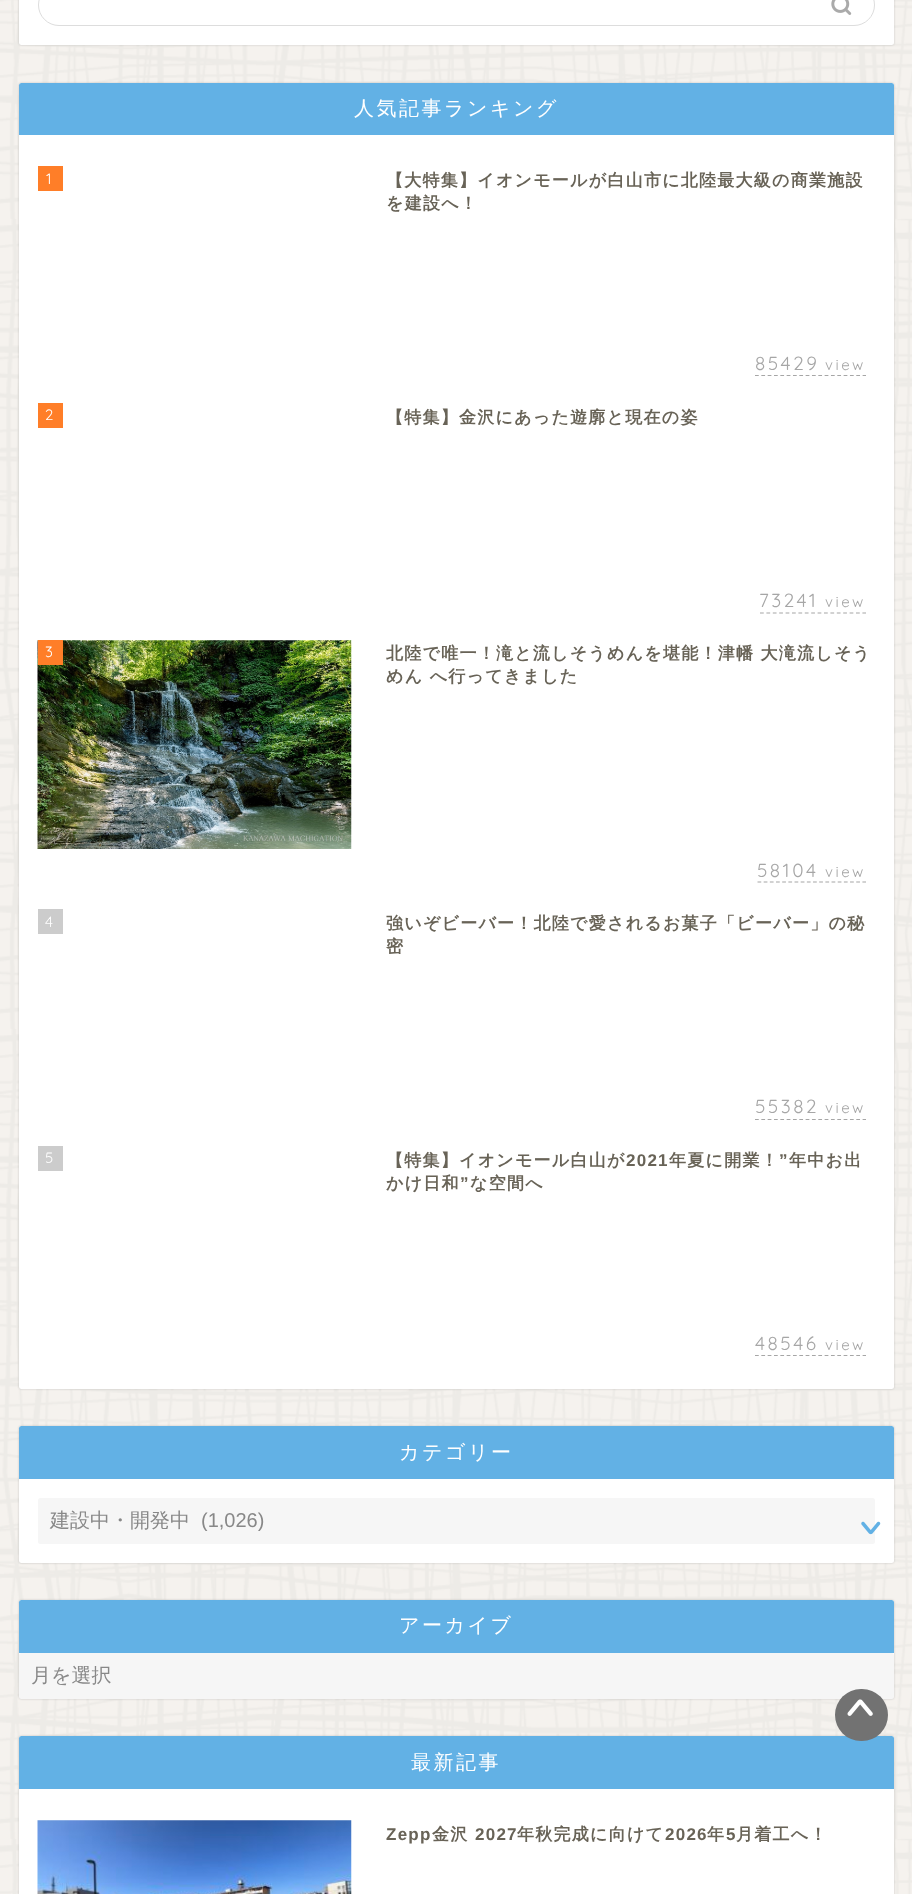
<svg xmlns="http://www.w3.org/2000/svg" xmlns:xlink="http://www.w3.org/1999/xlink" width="912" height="1894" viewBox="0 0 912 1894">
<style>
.cls-1{font:500 20px WenQuanYi Zen Hei;letter-spacing:2.5px;fill:#ffffff}
.cls-2{font:300 15px Quicksand;letter-spacing:2.5px;fill:#ffffff}
.cls-3{font:bold 17px WenQuanYi Zen Hei;letter-spacing:1.25px;fill:#686357}
.cls-4{font:300 19px Quicksand;letter-spacing:2.5px;fill:#a6a6a6}
.cls-5{font:300 15px Quicksand;letter-spacing:2.5px;fill:#a6a6a6}
.cls-6{font:bold 17px Liberation Sans;letter-spacing:1.25px;fill:#686357}
.cls-7{font:500 20px WenQuanYi Zen Hei;fill:#888888}
.cls-8{font:20px Liberation Sans;fill:#888888}
</style>
<defs>
<clipPath id="clip1"><rect x="50" y="1510" width="813" height="21"/></clipPath>
</defs>
<rect width="100%" height="100%" fill="#ffffff"/>
<image xlink:href="image0.png" x="0" y="0" width="912" height="1894"/>
<rect fill="#000000" fill-opacity="0.18" filter="blur(1px)" x="19" y="-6" width="875" height="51" rx="2.5"/>
<rect fill="#ffffff" x="19" y="-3" width="875" height="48" rx="2.5"/>
<rect fill="none" stroke="#dddddd" x="38.5" y="-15.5" width="836" height="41" rx="20.5"/>
<image xlink:href="image1.png" x="831" y="0" width="21" height="15"/>
<rect fill="#000000" fill-opacity="0.18" filter="blur(1px)" x="19" y="83" width="875" height="1306" rx="2.5"/>
<rect fill="#ffffff" x="19" y="83" width="875" height="1306" rx="2.5"/>
<path fill="#62b1e5" d="M21.5 83H891.5C893 83 894 84 894 85.5V135H19V85.5C19 84 20 83 21.5 83Z"/>
<rect fill="#ff7e28" x="38" y="166" width="25" height="25"/>
<path fill="none" stroke="#a6a6a6" stroke-width="1.2" stroke-dasharray="3.75 2.58" d="M755 375.5H866"/>
<rect fill="#ff7e28" x="38" y="403" width="25" height="25"/>
<path fill="none" stroke="#a6a6a6" stroke-width="1.2" stroke-dasharray="3.75 2.65" d="M760 613H866"/>
<image xlink:href="image2.png" x="37" y="640" width="315" height="209"/>
<rect fill="#ff7e28" x="38" y="640" width="25" height="25"/>
<path fill="none" stroke="#a6a6a6" stroke-width="1.2" stroke-dasharray="3.75 2.42" d="M757.5 882H866"/>
<rect fill="#cccccc" x="38" y="909" width="25" height="25"/>
<path fill="none" stroke="#a6a6a6" stroke-width="1.2" stroke-dasharray="3.75 2.58" d="M755 1119.5H866"/>
<rect fill="#cccccc" x="38" y="1146" width="25" height="25"/>
<path fill="none" stroke="#a6a6a6" stroke-width="1.2" stroke-dasharray="3.75 2.58" d="M755 1355.5H866"/>
<rect fill="#000000" fill-opacity="0.18" filter="blur(1px)" x="19" y="1426" width="875" height="137" rx="2.5"/>
<rect fill="#ffffff" x="19" y="1426" width="875" height="137" rx="2.5"/>
<path fill="#62b1e5" d="M21.5 1426H891.5C893 1426 894 1427 894 1428.5V1479H19V1428.5C19 1427 20 1426 21.5 1426Z"/>
<rect fill="#f6f6f6" x="38" y="1498" width="837" height="46" rx="2.5"/>
<image xlink:href="image3.png" x="861" y="1521" width="20" height="14"/>
<rect fill="#000000" fill-opacity="0.18" filter="blur(1px)" x="19" y="1600" width="875" height="99" rx="2.5"/>
<rect fill="#ffffff" x="19" y="1600" width="875" height="99" rx="2.5"/>
<path fill="#62b1e5" d="M21.5 1600H891.5C893 1600 894 1601 894 1602.5V1653H19V1602.5C19 1601 20 1600 21.5 1600Z"/>
<rect fill="#c0c0c0" fill-opacity="0.15" x="19" y="1653" width="875" height="46" rx="2.5"/>
<rect fill="#000000" fill-opacity="0.18" filter="blur(1px)" x="19" y="1736" width="875" height="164" rx="2.5"/>
<rect fill="#ffffff" x="19" y="1736" width="875" height="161" rx="2.5"/>
<path fill="#62b1e5" d="M21.5 1736H891.5C893 1736 894 1737 894 1738.5V1789H19V1738.5C19 1737 20 1736 21.5 1736Z"/>
<image xlink:href="image4.png" x="37" y="1820" width="315" height="74"/>
<rect fill="#727272" x="835" y="1689" width="53" height="52" rx="26"/>
<image xlink:href="image5.png" x="847" y="1699" width="26" height="17"/>
<text class="cls-1" x="354" y="115">人気記事ランキング</text>
<text class="cls-2" x="46" y="184">1</text>
<text class="cls-3"><tspan x="386" y="186">【大特集】イオンモールが白山市に北陸最大級の商業施設</tspan><tspan x="386" y="209">を建設へ！</tspan></text>
<text class="cls-4" x="755" y="370">85429</text>
<text class="cls-5" x="825" y="370">view</text>
<text class="cls-2" x="45" y="420">2</text>
<text class="cls-3" x="386" y="423">【特集】金沢にあった遊廓と現在の姿</text>
<text class="cls-4" x="759" y="607">73241</text>
<text class="cls-5" x="825" y="607">view</text>
<text class="cls-2" x="45" y="657">3</text>
<text class="cls-3"><tspan x="386" y="659">北陸で唯一！滝と流しそうめんを堪能！津幡 大滝流しそう</tspan><tspan x="386" y="682">めん へ行ってきました</tspan></text>
<text class="cls-4" x="757" y="877">58104</text>
<text class="cls-5" x="825" y="877">view</text>
<text class="cls-2" x="45" y="927">4</text>
<text class="cls-3"><tspan x="386" y="929">強いぞビーバー！北陸で愛されるお菓子「ビーバー」の秘</tspan><tspan x="386" y="952">密</tspan></text>
<text class="cls-4" x="755" y="1113">55382</text>
<text class="cls-5" x="825" y="1113">view</text>
<text class="cls-2" x="45" y="1163">5</text>
<text class="cls-3" x="386" y="1166">【特集】イオンモール白山が</text>
<text class="cls-6" x="626" y="1166">2021</text>
<text class="cls-3" x="669" y="1166">年夏に開業！</text>
<text class="cls-6" x="779" y="1166">”</text>
<text class="cls-3" x="789" y="1166">年中お出</text>
<text class="cls-3" x="386" y="1189">かけ日和</text>
<text class="cls-6" x="460" y="1189">”</text>
<text class="cls-3" x="470" y="1189">な空間へ</text>
<text class="cls-4" x="755" y="1350">48546</text>
<text class="cls-5" x="825" y="1350">view</text>
<text class="cls-1" x="399" y="1459">カテゴリー</text>
<text class="cls-7" x="50" y="1527">建設中・開発中</text>
<g clip-path="url(#clip1)">
<text class="cls-8" x="201" y="1527">(1,026)</text>
</g>
<text class="cls-1" x="399" y="1632">アーカイブ</text>
<text class="cls-7" x="31" y="1682">月を選択</text>
<text class="cls-1" x="411" y="1769">最新記事</text>
<text class="cls-6" x="386" y="1840">Zepp</text>
<text class="cls-3" x="432" y="1840">金沢</text>
<text class="cls-6" x="475" y="1840">2027</text>
<text class="cls-3" x="517" y="1840">年秋完成に向けて</text>
<text class="cls-6" x="665" y="1840">2026</text>
<text class="cls-3" x="707" y="1840">年</text>
<text class="cls-6" x="726" y="1840">5</text>
<text class="cls-3" x="736" y="1840">月着工へ！</text>
</svg>
